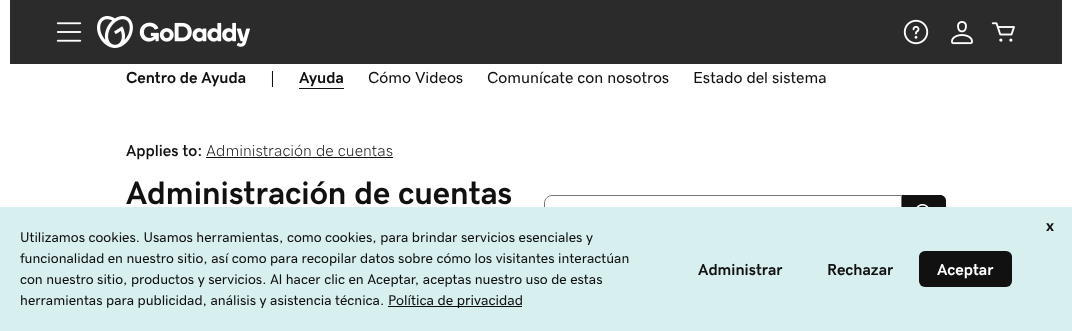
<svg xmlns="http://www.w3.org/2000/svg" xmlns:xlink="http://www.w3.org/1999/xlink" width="1072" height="331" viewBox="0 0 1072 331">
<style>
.cls-1{font:bold 16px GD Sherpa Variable;fill:#111111}
.cls-2{font:16px GD Sherpa Variable;fill:#111111}
.cls-3{font:600 16px GD Sherpa Variable;fill:#111111}
.cls-4{font:200 16px GD Sherpa Variable;fill:#111111}
.cls-5{font:bold 32.5px GD Sherpa Variable;fill:#111111}
.cls-6{font:bold 16px 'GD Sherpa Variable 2';fill:#111111}
.cls-7{font:14px GD Sherpa Variable;fill:#111111}
.cls-8{font:14.25px GD Sherpa Variable;fill:#111111}
.cls-9{font:bold 16px 'GD Sherpa Variable 2';fill:#ffffff}
</style>
<rect width="100%" height="100%" fill="#ffffff"/>
<rect fill="#2b2b2b" x="10" y="0" width="1052" height="64"/>
<image xlink:href="image0.png" x="56" y="22" width="26" height="20"/>
<image xlink:href="image1.png" x="97" y="16" width="153" height="32"/>
<image xlink:href="image2.png" x="903" y="19" width="26" height="26"/>
<image xlink:href="image3.png" x="951" y="21" width="22" height="24"/>
<image xlink:href="image4.png" x="991" y="22" width="24" height="20"/>
<rect fill="#111111" x="299" y="88" width="45" height="1"/>
<rect fill="#111111" x="206" y="157" width="187" height="1"/>
<path fill="none" stroke="#767676" d="M552 195.5H901.5V230.5H552C548 230.5 544.5 227 544.5 223V203C544.5 199 548 195.5 552 195.5Z"/>
<path fill="#111111" d="M902 195H940C943.5 195 946 197.5 946 201V225C946 228.5 943.5 231 940 231H902Z"/>
<image xlink:href="image5.png" x="916" y="204" width="13" height="3"/>
<rect fill="#d8efef" x="0" y="207" width="1072" height="124"/>
<rect fill="#111111" x="388" y="306" width="134" height="1"/>
<rect fill="#111111" x="919" y="251" width="93" height="36" rx="6"/>
<text class="cls-1" x="126" y="83">Centro de Ayuda</text>
<text class="cls-2" x="270" y="83">|</text>
<text class="cls-1" x="299" y="83">Ayuda</text>
<text class="cls-2" x="368" y="83">Cómo Videos</text>
<text class="cls-2" x="487" y="83">Comunícate con nosotros</text>
<text class="cls-2" x="693" y="83">Estado del sistema</text>
<text class="cls-3" x="126" y="156">Applies to:</text>
<text class="cls-4" x="206" y="156">Administración de cuentas</text>
<text class="cls-5" x="126" y="204">Administración de cuentas</text>
<text class="cls-6" x="1046" y="231">x</text>
<text class="cls-7"><tspan x="20" y="242">Utilizamos cookies. Usamos herramientas, como cookies, para brindar servicios esenciales y</tspan><tspan x="20" y="263">funcionalidad en nuestro sitio, así como para recopilar datos sobre cómo los visitantes interactúan</tspan><tspan x="20" y="284">con nuestro sitio, productos y servicios. Al hacer clic en Aceptar, aceptas nuestro uso de estas</tspan><tspan x="20" y="305">herramientas para publicidad, análisis y asistencia técnica.</tspan></text>
<text class="cls-8" x="388" y="305">Política de privacidad</text>
<text class="cls-6" x="698" y="275">Administrar</text>
<text class="cls-6" x="827" y="275">Rechazar</text>
<text class="cls-9" x="937" y="275">Aceptar</text>
</svg>
